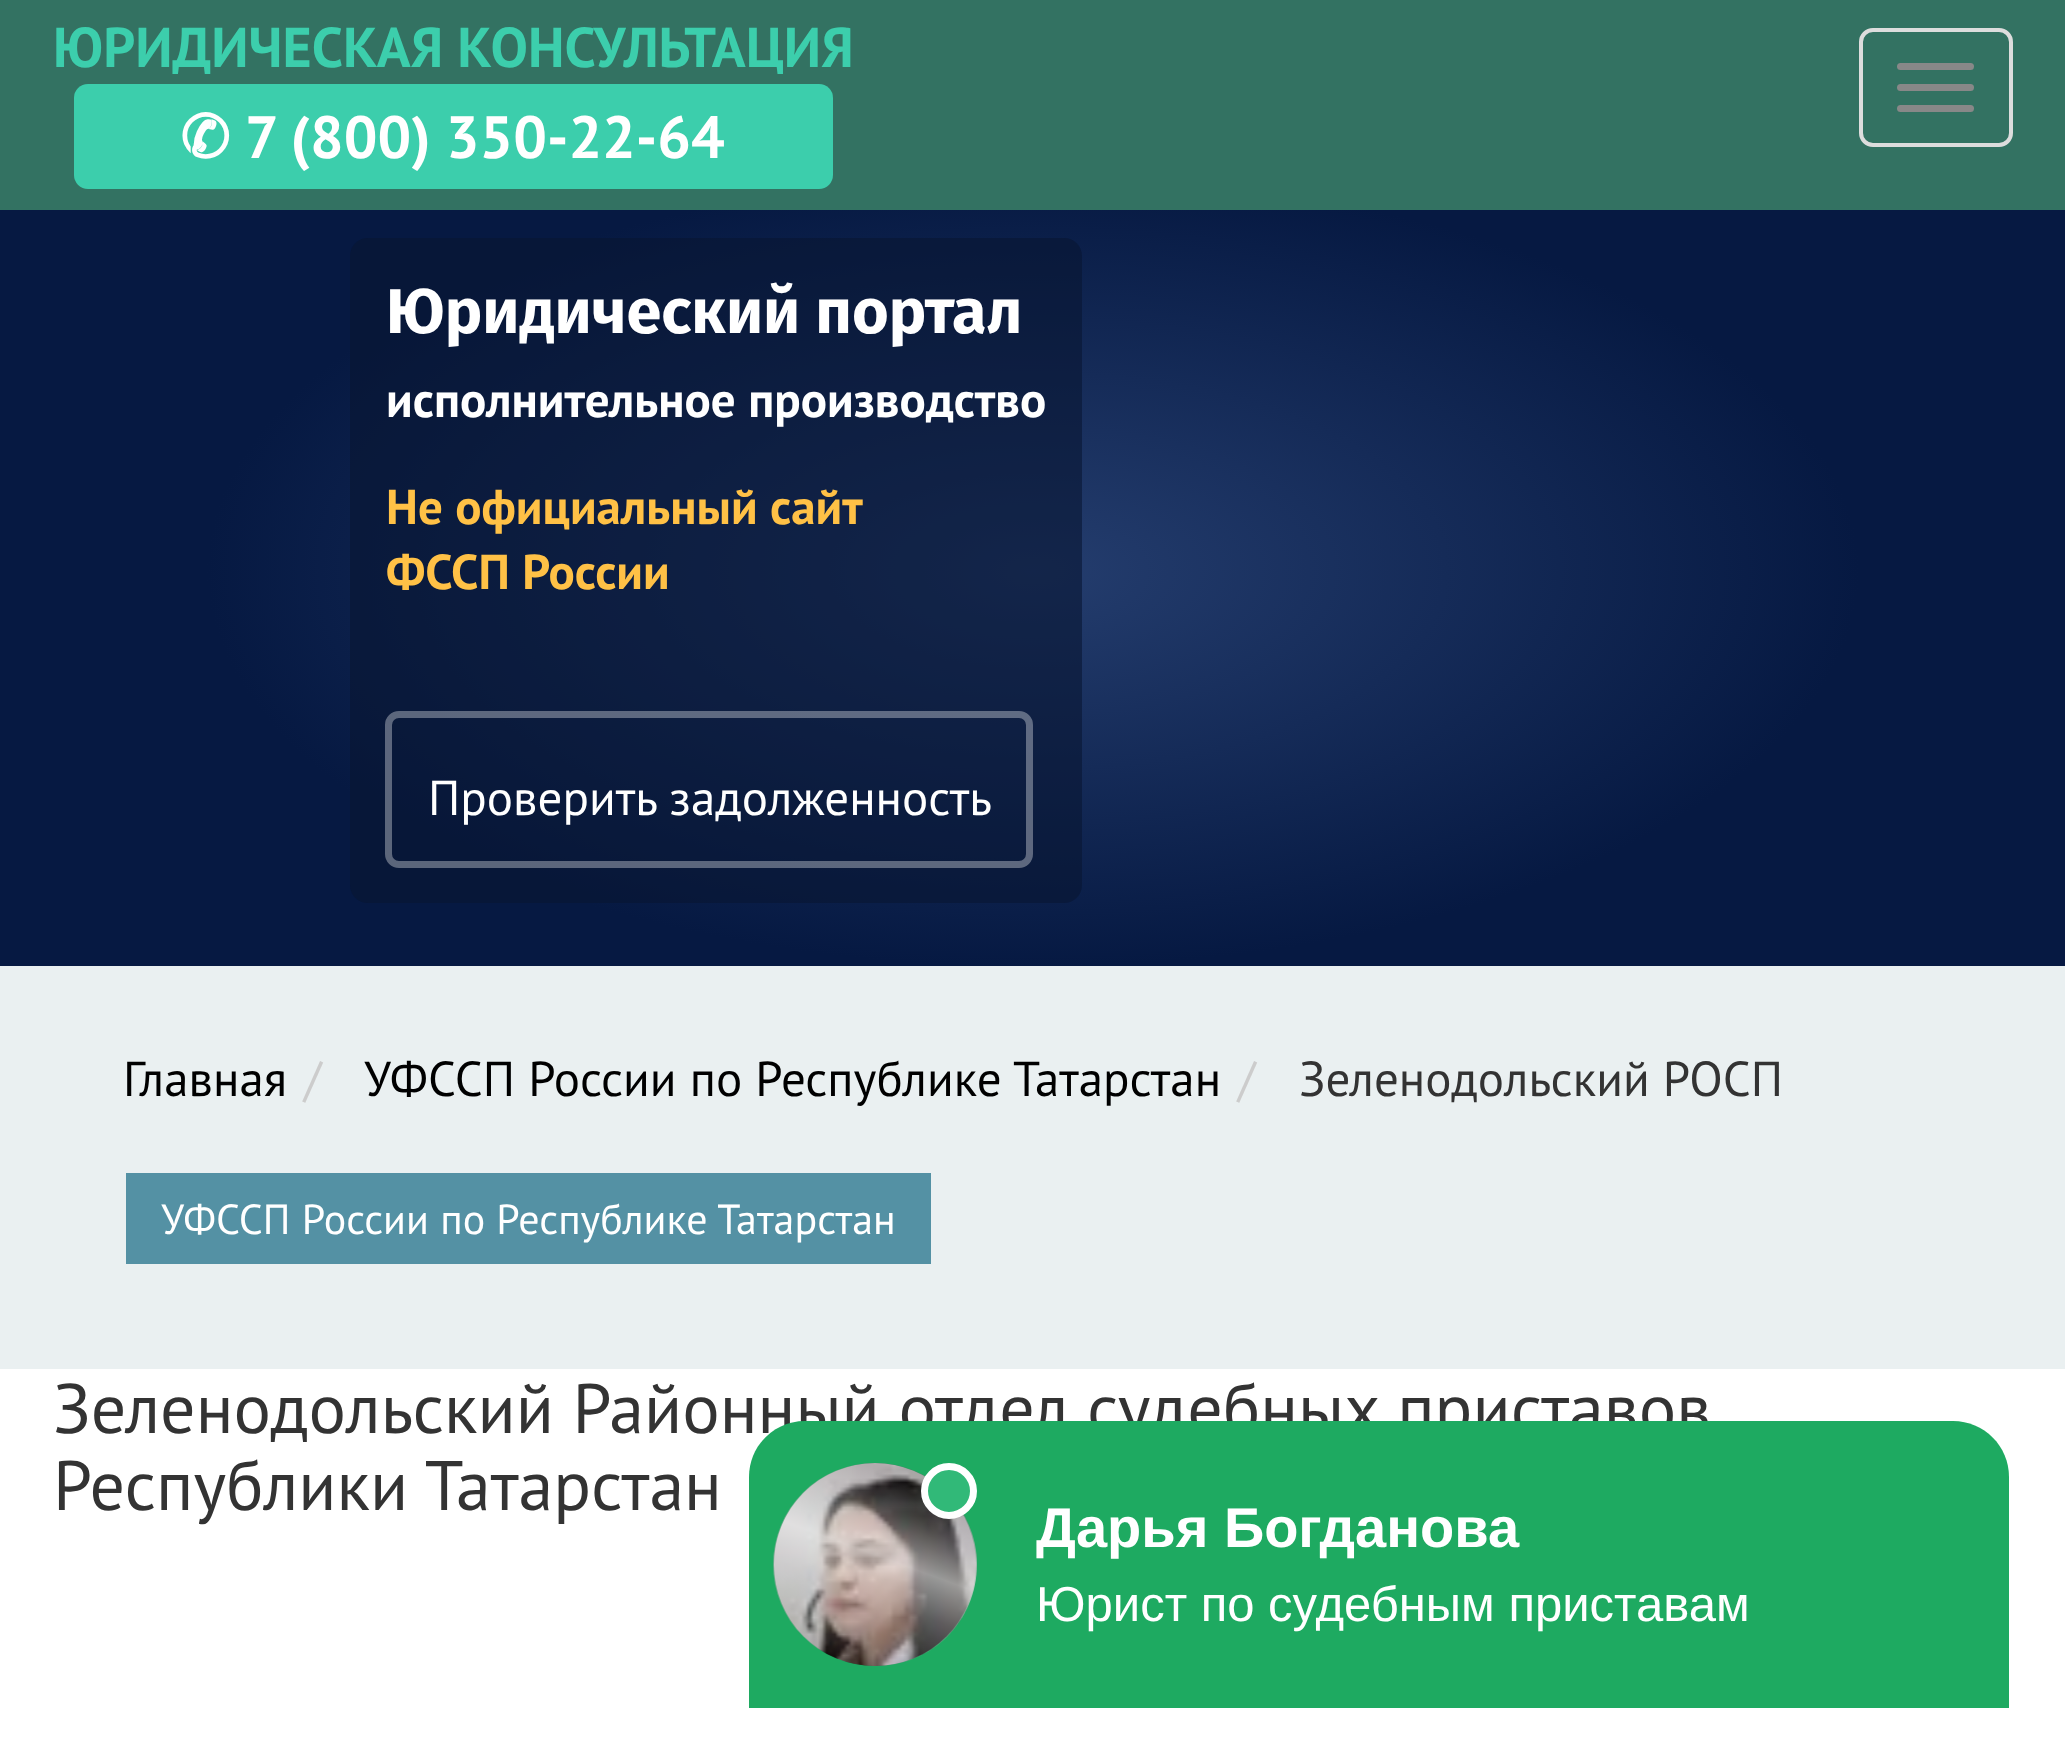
<svg xmlns="http://www.w3.org/2000/svg" xmlns:xlink="http://www.w3.org/1999/xlink" width="2065" height="1763" viewBox="0 0 2065 1763">
<style>
.cls-1{font:bold 56px PT Sans;fill:#3cceac}
.cls-2{font:bold 59.5px DejaVu Sans;fill:#ffffff}
.cls-3{font:bold 59.5px PT Sans;fill:#ffffff}
.cls-4{font:bold 63px Fira Sans;fill:#ffffff}
.cls-5{font:bold 49px PT Sans;fill:#ffffff}
.cls-6{font:bold 49px PT Sans;fill:#ffc146}
.cls-7{font:49px PT Sans;fill:#ffffff}
.cls-8{font:49px PT Sans;fill:#000000}
.cls-9{font:49px PT Sans;fill:#cccccc}
.cls-10{font:49px PT Sans;fill:#333333}
.cls-11{font:42px PT Sans;fill:#ffffff}
.cls-12{font:70px PT Sans;fill:#333333}
.cls-13{font:bold 56px Liberation Sans;fill:#ffffff}
.cls-14{font:49px Liberation Sans;fill:#ffffff}
</style>
<defs>
<radialGradient id="g1" gradientUnits="userSpaceOnUse" cx="0" cy="0" r="1" gradientTransform="matrix(826 0 0 396 1033 571)"><stop offset="0" stop-color="#243d6e"/><stop offset="1" stop-color="#061942"/></radialGradient>
<linearGradient id="g2" gradientUnits="userSpaceOnUse" x1="910" y1="1481" x2="840" y2="1672"><stop offset="0" stop-color="#ffffff" stop-opacity="0"/><stop offset="0.4" stop-color="#ffffff" stop-opacity="0.6"/><stop offset="0.6" stop-color="#ffffff" stop-opacity="0.36"/><stop offset="1" stop-color="#ffffff" stop-opacity="0"/></linearGradient>
</defs>
<rect width="100%" height="100%" fill="#eaf0f1"/>
<rect fill="#337262" x="0" y="0" width="2065" height="210"/>
<rect fill="#3cceac" x="74" y="84" width="759" height="105" rx="14"/>
<rect fill="none" stroke="#dddddd" stroke-width="4" x="1861" y="30" width="150" height="115" rx="12"/>
<rect fill="#888888" x="1897" y="63" width="77" height="7" rx="3.5"/>
<rect fill="#888888" x="1897" y="84" width="77" height="7" rx="3.5"/>
<rect fill="#888888" x="1897" y="105" width="77" height="7" rx="3.5"/>
<rect fill="url(#g1)" x="0" y="210" width="2065" height="756"/>
<rect fill="#081632" fill-opacity="0.6" x="350" y="238" width="732" height="665" rx="18"/>
<rect fill="none" stroke="#ffffff" stroke-opacity="0.34" stroke-width="7" x="388.5" y="714.5" width="641" height="150" rx="10.5"/>
<rect fill="#5491a4" x="126" y="1173" width="805" height="91"/>
<rect fill="#ffffff" x="0" y="1369" width="2065" height="394"/>
<text class="cls-1" x="53" y="67">ЮРИДИЧЕСКАЯ КОНСУЛЬТАЦИЯ</text>
<text class="cls-2" x="180" y="158">✆</text>
<text class="cls-3" x="245" y="158">7 (800) 350-22-64</text>
<text class="cls-4" x="386" y="333">Юридический портал</text>
<text class="cls-5" x="386" y="417">исполнительное производство</text>
<text class="cls-6"><tspan x="386" y="524">Не официальный сайт</tspan><tspan x="386" y="589">ФССП России</tspan></text>
<text class="cls-7" x="428" y="815">Проверить задолженность</text>
<text class="cls-8" x="123" y="1096">Главная</text>
<text class="cls-9" x="304" y="1096">/</text>
<text class="cls-8" x="364" y="1096">УФССП России по Республике Татарстан</text>
<text class="cls-9" x="1238" y="1096">/</text>
<text class="cls-10" x="1299" y="1096">Зеленодольский РОСП</text>
<text class="cls-11" x="161" y="1234">УФССП России по Республике Татарстан</text>
<text class="cls-12"><tspan x="53" y="1433">Зеленодольский Районный отдел судебных приставов</tspan><tspan x="53" y="1510">Республики Татарстан</tspan></text>
<path fill="#1eaa61" d="M805 1421H1953C1984 1421 2009 1446 2009 1477V1708H749V1477C749 1446 774 1421 805 1421Z"/>
<circle fill="#178049" cx="875.5" cy="1564.5" r="101.5"/>
<image xlink:href="image0.png" x="773" y="1463" width="204" height="203"/>
<path fill="url(#g2)" d="M861 1464L951 1497C967 1515 977 1538 977 1564C977 1621 932 1666 876 1666C819 1666 774 1621 774 1564C774 1513 812 1471 861 1464Z"/>
<circle fill="#31b978" stroke="#ffffff" stroke-width="7" cx="949" cy="1491" r="24.5"/>
<text class="cls-13" x="1036" y="1547">Дарья Богданова</text>
<text class="cls-14" x="1036" y="1621">Юрист по судебным приставам</text>
</svg>
